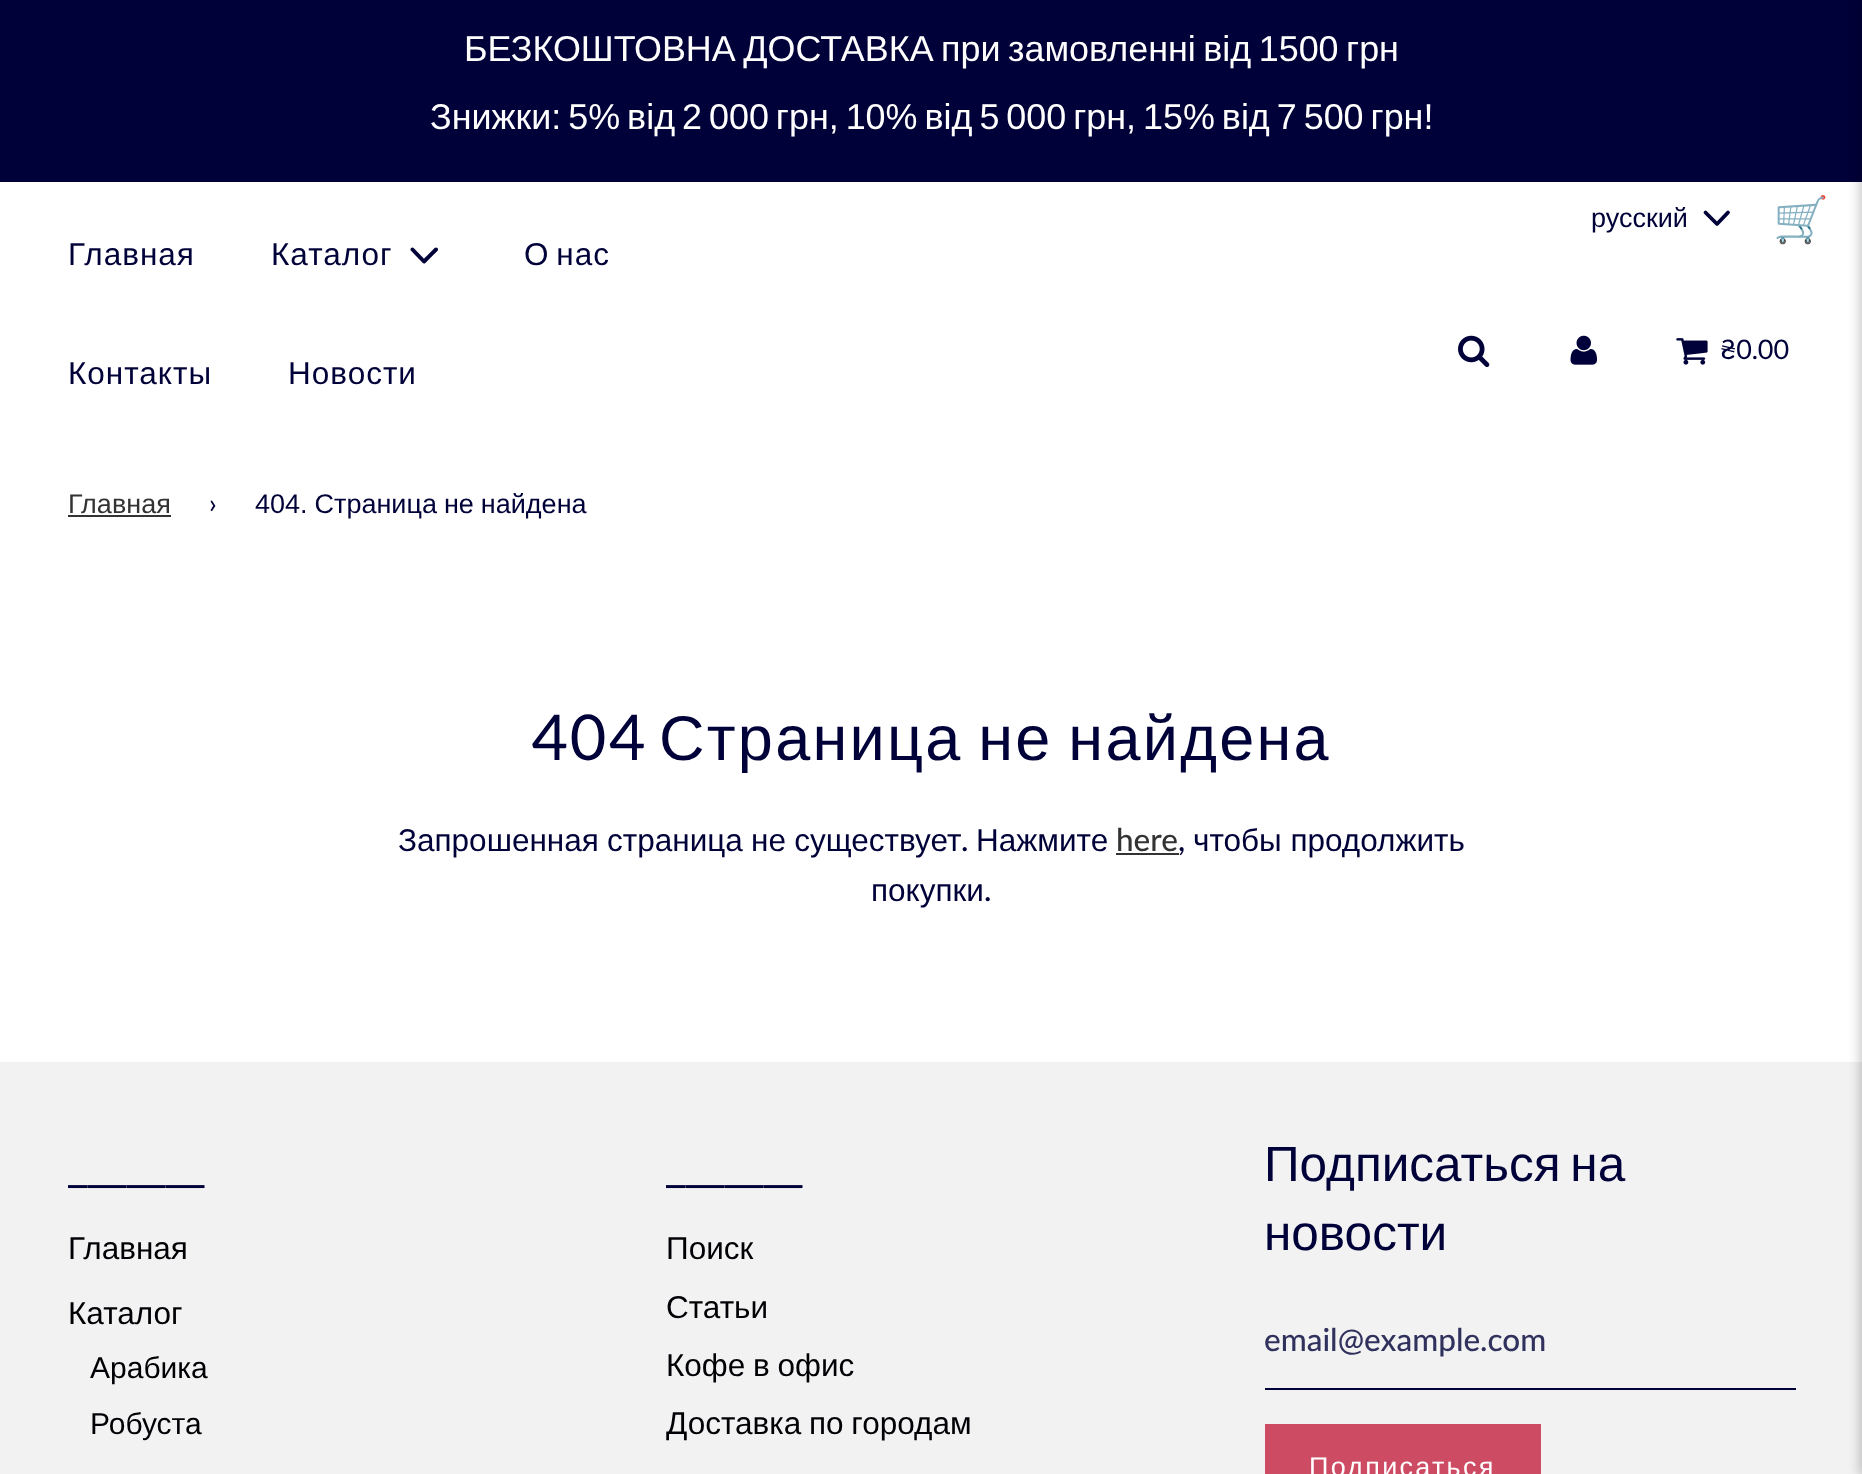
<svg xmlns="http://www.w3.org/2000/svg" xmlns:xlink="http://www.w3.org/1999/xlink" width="1862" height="1474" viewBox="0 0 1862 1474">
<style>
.cls-1{font:35.9px Liberation Sans;fill:#ffffff}
.cls-2{font:31.5px Liberation Sans;letter-spacing:1px;fill:#000138}
.cls-3{font:27px Liberation Sans;fill:#000138}
.cls-4{font:45px Noto Color Emoji;fill:#000138}
.cls-5{font:27px Lato;fill:#000138}
.cls-6{font:27px Liberation Sans;fill:#333333}
.cls-7{font:500 27px Lato;fill:#000138}
.cls-8{font:63px Lato;letter-spacing:2.25px;fill:#000138}
.cls-9{font:63px Liberation Sans;letter-spacing:2.25px;fill:#000138}
.cls-10{font:31.5px Liberation Sans;fill:#000138}
.cls-11{font:500 31.5px Lato;fill:#000138}
.cls-12{font:500 31.5px Lato;fill:#333333}
.cls-13{font:49.5px Lato;fill:#000138}
.cls-14{font:31.5px Liberation Sans;fill:#000005}
.cls-15{font:30px Liberation Sans;fill:#000005}
.cls-16{font:49.5px Liberation Sans;fill:#000138}
.cls-17{font:500 31.5px Lato;fill:#30315d}
.cls-18{font:27px Liberation Sans;letter-spacing:2.25px;fill:#ffffff}
</style>
<rect width="100%" height="100%" fill="#ffffff"/>
<rect fill="#000138" x="0" y="0" width="1862" height="182"/>
<path fill="none" stroke="#000138" stroke-width="3.9" stroke-linecap="round" stroke-linejoin="round" d="M412.5 249.5L424 261.5L436 249.5"/>
<path fill="none" stroke="#000138" stroke-width="3.8" stroke-linecap="round" stroke-linejoin="round" d="M1705.5 212.5L1717 224L1728 212.5"/>
<image xlink:href="image0.png" x="1458" y="335" width="32" height="32"/>
<image xlink:href="image1.png" x="1570" y="335" width="27" height="30"/>
<image xlink:href="image2.png" x="1676" y="338" width="32" height="27"/>
<rect fill="#333333" x="68" y="515" width="103" height="2"/>
<rect fill="#333333" x="1116" y="853" width="63" height="2"/>
<rect fill="#f2f2f2" x="0" y="1062" width="1862" height="412"/>
<rect fill="#000138" x="1265" y="1388" width="531" height="2"/>
<rect fill="#ce4b64" x="1265" y="1424" width="276" height="50"/>
<rect fill="#000000" fill-opacity="0.2" filter="blur(5.5px)" x="1859" y="0" width="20" height="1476"/>
<text class="cls-1" x="464" y="61" word-spacing="-2.5">БЕЗКОШТОВНА ДОСТАВКА при замовленні від 1500 грн</text>
<text class="cls-1" x="430" y="129" word-spacing="-3">Знижки: 5% від 2 000 грн, 10% від 5 000 грн, 15% від 7 500 грн!</text>
<text class="cls-2" x="68" y="265">Главная</text>
<text class="cls-2" x="271" y="265">Каталог</text>
<text class="cls-2" x="524" y="265" word-spacing="-3">О нас</text>
<text class="cls-2" x="68" y="384">Контакты</text>
<text class="cls-2" x="288" y="384">Новости</text>
<text class="cls-3" x="1591" y="227">русский</text>
<text class="cls-4" x="1773" y="235">🛒</text>
<text class="cls-5" x="1720" y="359">₴0.00</text>
<text class="cls-6" x="68" y="513">Главная</text>
<text class="cls-7" x="209" y="513">›</text>
<text class="cls-3" x="255" y="513" word-spacing="-0.5">404. Страница не найдена</text>
<text class="cls-8" x="531" y="760">404</text>
<text class="cls-9" x="659" y="760" word-spacing="-4">Страница не найдена</text>
<text class="cls-10" x="398" y="851" word-spacing="-0.5">Запрошенная страница не существует</text>
<text class="cls-11" x="961" y="851">.</text>
<text class="cls-10" x="976" y="851">Нажмите</text>
<text class="cls-12" x="1116" y="851">here</text>
<text class="cls-11" x="1178" y="851">,</text>
<text class="cls-10" x="1193" y="851">чтобы продолжить</text>
<text class="cls-10" x="871" y="901">покупки</text>
<text class="cls-11" x="984" y="901">.</text>
<text class="cls-13" x="68" y="1181">_______</text>
<text class="cls-14" x="68" y="1259">Главная</text>
<text class="cls-14" x="68" y="1324">Каталог</text>
<text class="cls-15"><tspan x="90" y="1378">Арабика</tspan><tspan x="90" y="1434">Робуста</tspan></text>
<text class="cls-13" x="666" y="1181">_______</text>
<text class="cls-14"><tspan x="666" y="1259">Поиск</tspan><tspan x="666" y="1318">Статьи</tspan><tspan x="666" y="1376" word-spacing="-1">Кофе в офис</tspan><tspan x="666" y="1434" word-spacing="-1">Доставка по городам</tspan></text>
<text class="cls-16"><tspan x="1264" y="1181" word-spacing="-4">Подписаться на</tspan><tspan x="1264" y="1250">новости</tspan></text>
<text class="cls-17" x="1264" y="1351">email@example.com</text>
<text class="cls-18" x="1309" y="1476">Подписаться</text>
</svg>
